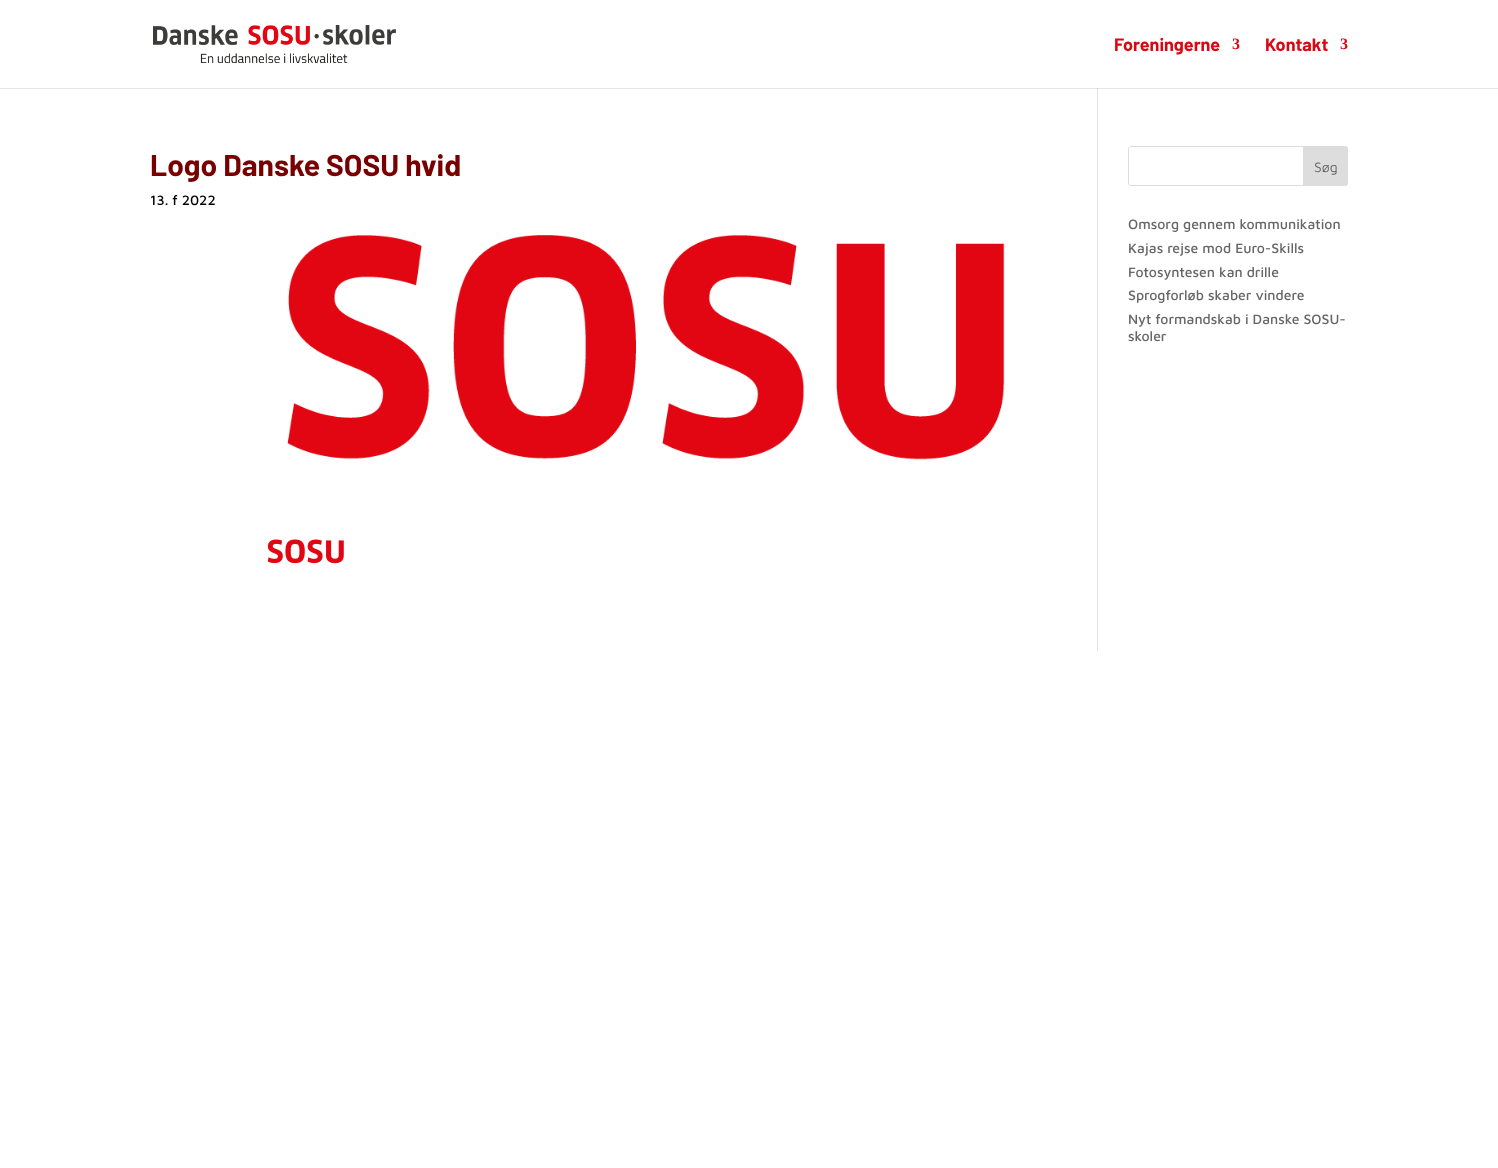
<svg xmlns="http://www.w3.org/2000/svg" xmlns:xlink="http://www.w3.org/1999/xlink" width="1498" height="1168" viewBox="0 0 1498 1168">
<style>
.cls-1{font:bold 18px Barlow;fill:#dc0612}
.cls-2{font:bold 16px Liberation Serif;fill:#dc0612}
.cls-3{font:bold 30px Barlow;fill:#780000}
.cls-4{font:500 14px Maven Pro;fill:#000000}
.cls-5{font:14px Maven Pro;fill:#666666}
.cls-6{font:500 14px Maven Pro;fill:#666666}
</style>
<rect width="100%" height="100%" fill="#ffffff"/>
<rect fill="#e6e6e6" x="0" y="88" width="1498" height="1"/>
<image xlink:href="image0.png" x="153" y="25" width="243" height="38"/>
<rect fill="#e2e2e2" x="1097" y="88" width="1" height="563"/>
<rect fill="#cbcbcb" x="1097" y="88" width="1" height="1"/>
<image xlink:href="image1.png" x="287" y="235" width="718" height="225"/>
<image xlink:href="image2.png" x="267" y="539" width="77" height="25"/>
<rect fill="none" stroke="#dddddd" x="1128.5" y="146.5" width="219" height="39" rx="2.5"/>
<path fill="#dddddd" stroke="#dddddd" d="M1303.5 146.5H1345C1346.5 146.5 1347.5 147.5 1347.5 149V183C1347.5 184.5 1346.5 185.5 1345 185.5H1303.5Z"/>
<text class="cls-1" x="1114" y="51">Foreningerne</text>
<text class="cls-2" x="1232" y="49">3</text>
<text class="cls-1" x="1265" y="51">Kontakt</text>
<text class="cls-2" x="1340" y="49">3</text>
<text class="cls-3" x="150" y="176">Logo Danske SOSU hvid</text>
<text class="cls-4" x="150" y="205">13. f 2022</text>
<text class="cls-5" x="1314" y="172">Søg</text>
<text class="cls-6"><tspan x="1128" y="229">Omsorg gennem kommunikation</tspan><tspan x="1128" y="253">Kajas rejse mod Euro-Skills</tspan><tspan x="1128" y="277">Fotosyntesen kan drille</tspan><tspan x="1128" y="300">Sprogforløb skaber vindere</tspan><tspan x="1128" y="324">Nyt formandskab i Danske SOSU-</tspan><tspan x="1128" y="341">skoler</tspan></text>
</svg>
